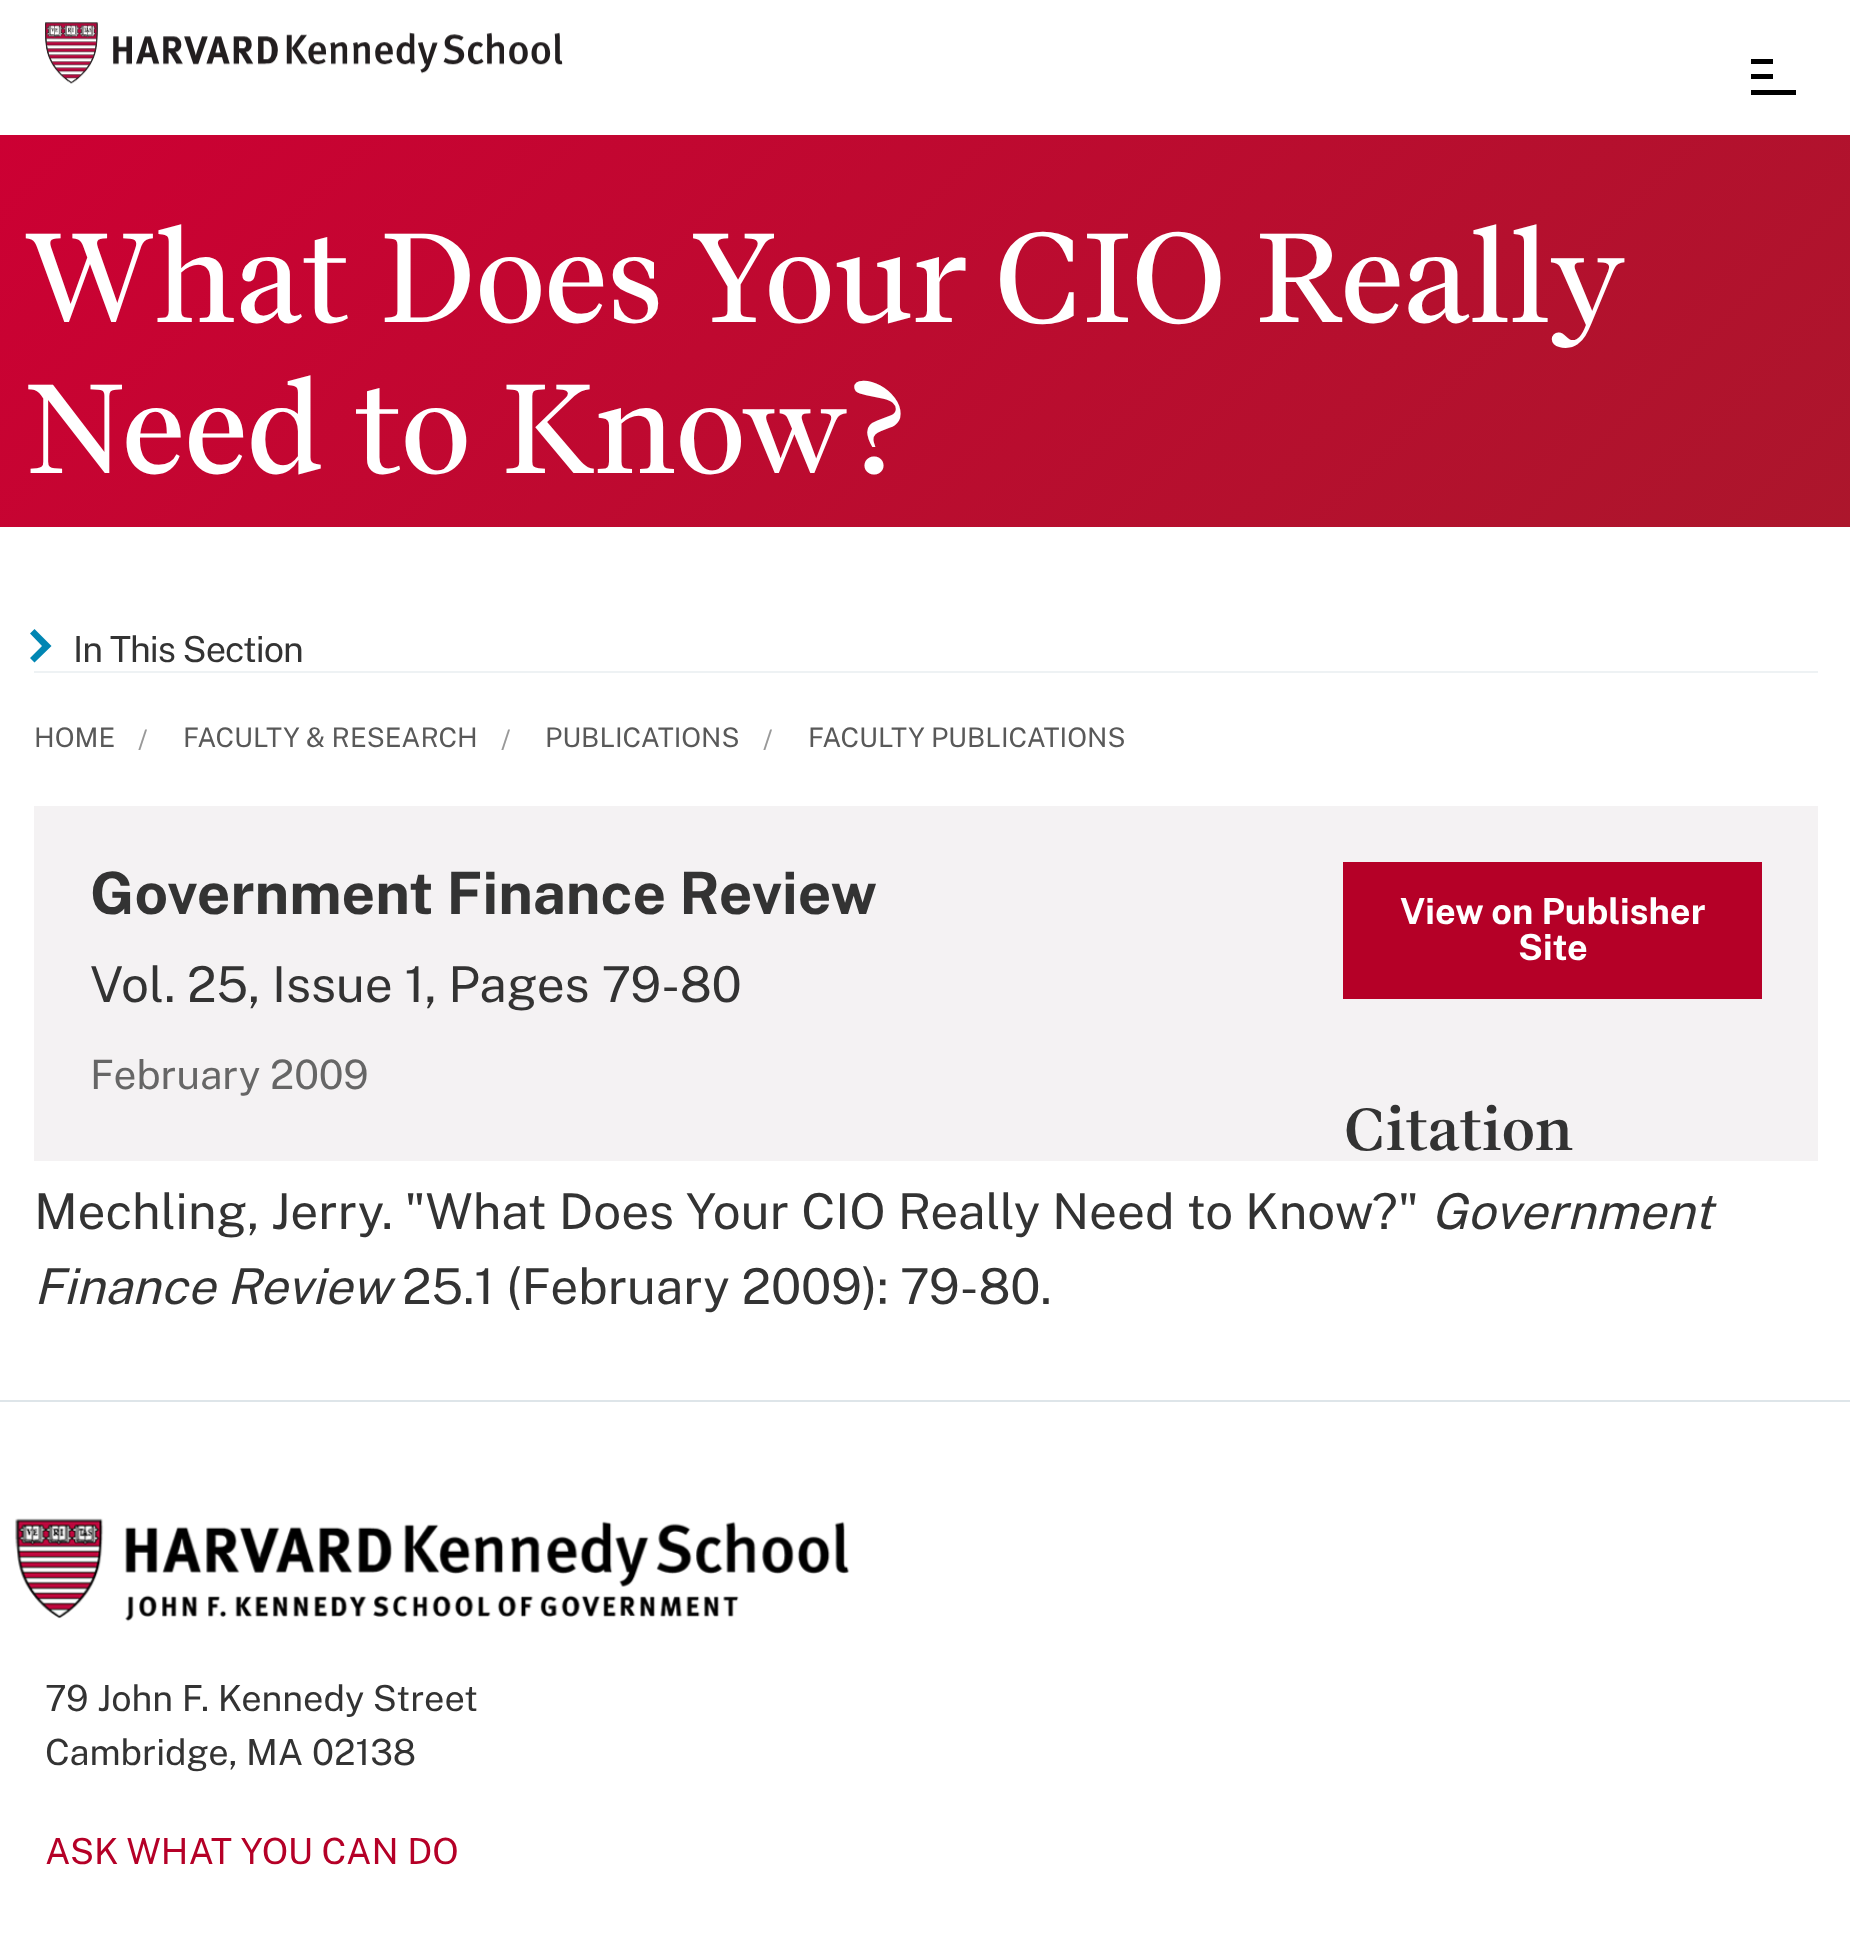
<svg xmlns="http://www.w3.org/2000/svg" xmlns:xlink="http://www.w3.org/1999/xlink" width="1850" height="1938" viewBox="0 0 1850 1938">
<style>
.cls-1{font:500 126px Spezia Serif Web;letter-spacing:-2.25px;fill:#ffffff}
.cls-2{font:100 36px Public Sans;letter-spacing:-1px;fill:#333333}
.cls-3{font:100 27px Public Sans;fill:#595959}
.cls-4{font:100 27px Public Sans;fill:#999999}
.cls-5{font:100 58.5px 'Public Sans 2';fill:#333333}
.cls-6{font:100 49.5px Public Sans;fill:#333333}
.cls-7{font:100 40.5px Public Sans;fill:#666666}
.cls-8{font:100 36px 'Public Sans 2';fill:#ffffff}
.cls-9{font:600 58.5px Spezia Serif Web;letter-spacing:-0.75px;fill:#333333}
.cls-10{font:italic 100 49.5px Public Sans;fill:#333333}
.cls-11{font:100 36px Public Sans;fill:#333333}
.cls-12{font:100 36px Public Sans;fill:#b50027}
</style>
<defs>
<linearGradient id="g1" gradientUnits="userSpaceOnUse" x1="365" y1="-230" x2="1487" y2="892"><stop offset="0" stop-color="#cc0033"/><stop offset="1" stop-color="#ac162c"/></linearGradient>
</defs>
<rect width="100%" height="100%" fill="#ffffff"/>
<image xlink:href="image0.png" x="45" y="22" width="518" height="62"/>
<rect fill="#000000" x="1751" y="59" width="22" height="5"/>
<rect fill="#000000" x="1751" y="74" width="22" height="5"/>
<rect fill="#000000" x="1751" y="90" width="45" height="5"/>
<rect fill="url(#g1)" x="0" y="135" width="1850" height="392"/>
<rect fill="#eef2f4" x="34" y="671" width="1784" height="2"/>
<path fill="#0086b3" d="M51.5 646L34.5 629L30 633.5L42 646L30 658L34.5 662.5Z"/>
<rect fill="#f4f2f3" x="34" y="806" width="1784" height="355"/>
<rect fill="#b50027" x="1343" y="862" width="419" height="137"/>
<rect fill="#dee5e9" x="0" y="1400" width="1850" height="2"/>
<image xlink:href="image1.png" x="15" y="1518" width="835" height="104"/>
<text class="cls-1"><tspan x="23" y="322" word-spacing="-0.5">What Does Your CIO Really</tspan><tspan x="23" y="473">Need to Know?</tspan></text>
<text class="cls-2" x="73" y="662">In This Section</text>
<text class="cls-3" x="34" y="747">HOME</text>
<text class="cls-4" x="138" y="749">/</text>
<text class="cls-3" x="183" y="747">FACULTY &amp; RESEARCH</text>
<text class="cls-4" x="501" y="749">/</text>
<text class="cls-3" x="545" y="747">PUBLICATIONS</text>
<text class="cls-4" x="763" y="749">/</text>
<text class="cls-3" x="808" y="747">FACULTY PUBLICATIONS</text>
<text class="cls-5" x="90" y="914">Government Finance Review</text>
<text class="cls-6" x="90" y="1002">Vol. 25, Issue 1, Pages 79-80</text>
<text class="cls-7" x="90" y="1089">February 2009</text>
<text class="cls-8" x="1400" y="924">View on Publisher</text>
<text class="cls-8" x="1518" y="960">Site</text>
<text class="cls-9" x="1344" y="1150">Citation</text>
<text class="cls-6" x="34" y="1229">Mechling, Jerry. "What Does Your CIO Really Need to Know?"</text>
<text class="cls-10" x="1431" y="1229">Government</text>
<text class="cls-10" x="34" y="1304">Finance Review</text>
<text class="cls-6" x="402" y="1304">25.1 (February 2009): 79-80.</text>
<text class="cls-11"><tspan x="45" y="1711">79 John F. Kennedy Street</tspan><tspan x="45" y="1765">Cambridge, MA 02138</tspan></text>
<text class="cls-12" x="45" y="1864">ASK WHAT YOU CAN DO</text>
</svg>
